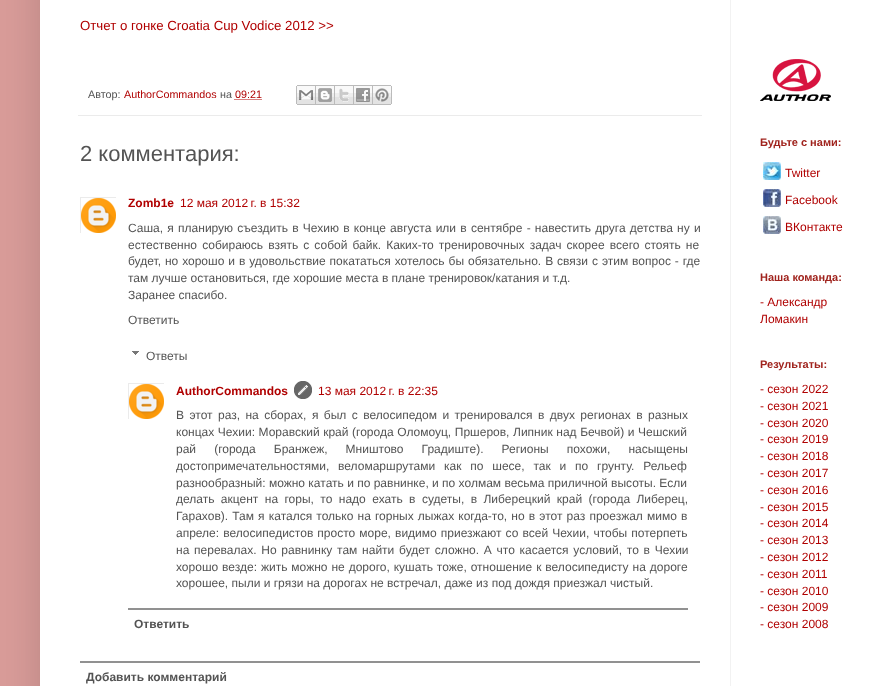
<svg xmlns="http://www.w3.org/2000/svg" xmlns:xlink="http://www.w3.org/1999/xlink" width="874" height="686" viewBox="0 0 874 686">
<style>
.cls-1{font:13.25px Liberation Sans;fill:#b00000}
.cls-2{font:10.75px Liberation Sans;fill:#535353}
.cls-3{font:10.75px Liberation Sans;fill:#b00000}
.cls-4{font:22px Liberation Sans;fill:#535353}
.cls-5{font:bold 12px Liberation Sans;fill:#b00000}
.cls-6{font:12px Liberation Sans;fill:#b00000}
.cls-7{font:12px Liberation Sans;fill:#535353}
.cls-8{font:bold 12px Liberation Sans;fill:#535353}
.cls-9{font:bold 11px Liberation Sans;fill:#a0231d}
</style>
<defs>
<clipPath id="clip1"><rect x="80" y="197" width="36" height="36"/></clipPath>
<clipPath id="clip2"><rect x="128" y="383" width="36" height="36"/></clipPath>
</defs>
<rect width="100%" height="100%" fill="#d99c99"/>
<rect fill="#000000" fill-opacity="0.15" filter="blur(20px)" x="40" y="-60" width="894" height="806"/>
<rect fill="#ffffff" x="40" y="0" width="834" height="686"/>
<rect fill="#f2f2f2" x="730" y="0" width="1" height="686"/>
<rect fill="#ebebeb" x="78" y="115" width="624" height="1"/>
<path fill="none" stroke="#b00000" stroke-dasharray="1 1" d="M234.5 99.5H261.5"/>
<image xlink:href="image0.png" x="296" y="85" width="20" height="20"/>
<image xlink:href="image1.png" x="316" y="85" width="19" height="20"/>
<image xlink:href="image2.png" x="335" y="85" width="19" height="20"/>
<image xlink:href="image3.png" x="354" y="85" width="19" height="20"/>
<image xlink:href="image4.png" x="373" y="85" width="19" height="20"/>
<g clip-path="url(#clip1)">
<rect fill="none" stroke="#ebebeb" x="80.5" y="197.5" width="36" height="36"/>
</g>
<image xlink:href="image5.png" x="81" y="198" width="35" height="35"/>
<image xlink:href="image6.png" x="132" y="351" width="7" height="4"/>
<g clip-path="url(#clip2)">
<rect fill="none" stroke="#ebebeb" x="128.5" y="383.5" width="36" height="36"/>
</g>
<image xlink:href="image5.png" x="129" y="384" width="35" height="35"/>
<image xlink:href="image7.png" x="294" y="381" width="18" height="18"/>
<rect fill="#919191" x="128" y="608" width="560" height="2"/>
<rect fill="#919191" x="80" y="661" width="620" height="2"/>
<image xlink:href="image8.png" x="760" y="59" width="71" height="42"/>
<image xlink:href="image9.png" x="763" y="162" width="18" height="18"/>
<image xlink:href="image10.png" x="763" y="189" width="18" height="18"/>
<image xlink:href="image11.png" x="763" y="216" width="18" height="18"/>
<text class="cls-1" x="80" y="30">Отчет о гонке Croatia Cup Vodice 2012 &gt;&gt;</text>
<text class="cls-2" x="88" y="98">Автор:</text>
<text class="cls-3" x="124" y="98">AuthorCommandos</text>
<text class="cls-2" x="220" y="98">на</text>
<text class="cls-3" x="235" y="98">09:21</text>
<text class="cls-4" x="80" y="161">2 комментария:</text>
<text class="cls-5" x="128" y="207">Zomb1e</text>
<text class="cls-6" x="180" y="207">12 мая 2012 г. в 15:32</text>
<text class="cls-7"><tspan x="128" y="232" word-spacing="0.9">Саша, я планирую съездить в Чехию в конце августа или в сентябре - навестить друга детства ну и</tspan><tspan x="128" y="249" word-spacing="1.75">естественно собираюсь взять с собой байк. Каких-то тренировочных задач скорее всего стоять не</tspan><tspan x="128" y="265" word-spacing="0.6">будет, но хорошо и в удовольствие покататься хотелось бы обязательно. В связи с этим вопрос - где</tspan><tspan x="128" y="282">там лучше остановиться, где хорошие места в плане тренировок/катания и т.д.</tspan><tspan x="128" y="299">Заранее спасибо.</tspan></text>
<text class="cls-7" x="128" y="324">Ответить</text>
<text class="cls-7" x="146" y="360">Ответы</text>
<text class="cls-5" x="176" y="395">AuthorCommandos</text>
<text class="cls-6" x="318" y="395">13 мая 2012 г. в 22:35</text>
<text class="cls-7"><tspan x="176" y="419" word-spacing="2.1">В этот раз, на сборах, я был с велосипедом и тренировался в двух регионах в разных</tspan><tspan x="176" y="436" word-spacing="0.25">концах Чехии: Моравский край (города Оломоуц, Пршеров, Липник над Бечвой) и Чешский</tspan><tspan x="176" y="453" word-spacing="14.75">рай (города Бранжеж, Мништово Градиште). Регионы похожи, насыщены</tspan><tspan x="176" y="470" word-spacing="5.5">достопримечательностями, веломаршрутами как по шесе, так и по грунту. Рельеф</tspan><tspan x="176" y="487">разнообразный: можно катать и по равнинке, и по холмам весьма приличной высоты. Если</tspan><tspan x="176" y="503" word-spacing="3.1">делать акцент на горы, то надо ехать в судеты, в Либерецкий край (города Либерец,</tspan><tspan x="176" y="520" word-spacing="0.8">Гарахов). Там я катался только на горных лыжах когда-то, но в этот раз проезжал мимо в</tspan><tspan x="176" y="537" word-spacing="0.75">апреле: велосипедистов просто море, видимо приезжают со всей Чехии, чтобы потерпеть</tspan><tspan x="176" y="554" word-spacing="1.4">на перевалах. Но равнинку там найти будет сложно. А что касается условий, то в Чехии</tspan><tspan x="176" y="571" word-spacing="0.6">хорошо везде: жить можно не дорого, кушать тоже, отношение к велосипедисту на дороге</tspan><tspan x="176" y="587">хорошее, пыли и грязи на дорогах не встречал, даже из под дождя приезжал чистый.</tspan></text>
<text class="cls-8" x="134" y="628">Ответить</text>
<text class="cls-8" x="86" y="681">Добавить комментарий</text>
<text class="cls-9" x="760" y="146">Будьте с нами:</text>
<text class="cls-6" x="785" y="177">Twitter</text>
<text class="cls-6" x="785" y="204">Facebook</text>
<text class="cls-6" x="785" y="231">ВКонтакте</text>
<text class="cls-9" x="760" y="281">Наша команда:</text>
<text class="cls-6"><tspan x="760" y="306">- Алекcандр</tspan><tspan x="760" y="323">Ломакин</tspan></text>
<text class="cls-9" x="760" y="368">Результаты:</text>
<text class="cls-6"><tspan x="760" y="393">- сезон 2022</tspan><tspan x="760" y="410">- сезон 2021</tspan><tspan x="760" y="427">- сезон 2020</tspan><tspan x="760" y="443">- сезон 2019</tspan><tspan x="760" y="460">- сезон 2018</tspan><tspan x="760" y="477">- сезон 2017</tspan><tspan x="760" y="494">- сезон 2016</tspan><tspan x="760" y="511">- сезон 2015</tspan><tspan x="760" y="527">- сезон 2014</tspan><tspan x="760" y="544">- сезон 2013</tspan><tspan x="760" y="561">- сезон 2012</tspan><tspan x="760" y="578">- сезон 2011</tspan><tspan x="760" y="595">- сезон 2010</tspan><tspan x="760" y="611">- сезон 2009</tspan><tspan x="760" y="628">- сезон 2008</tspan></text>
</svg>
